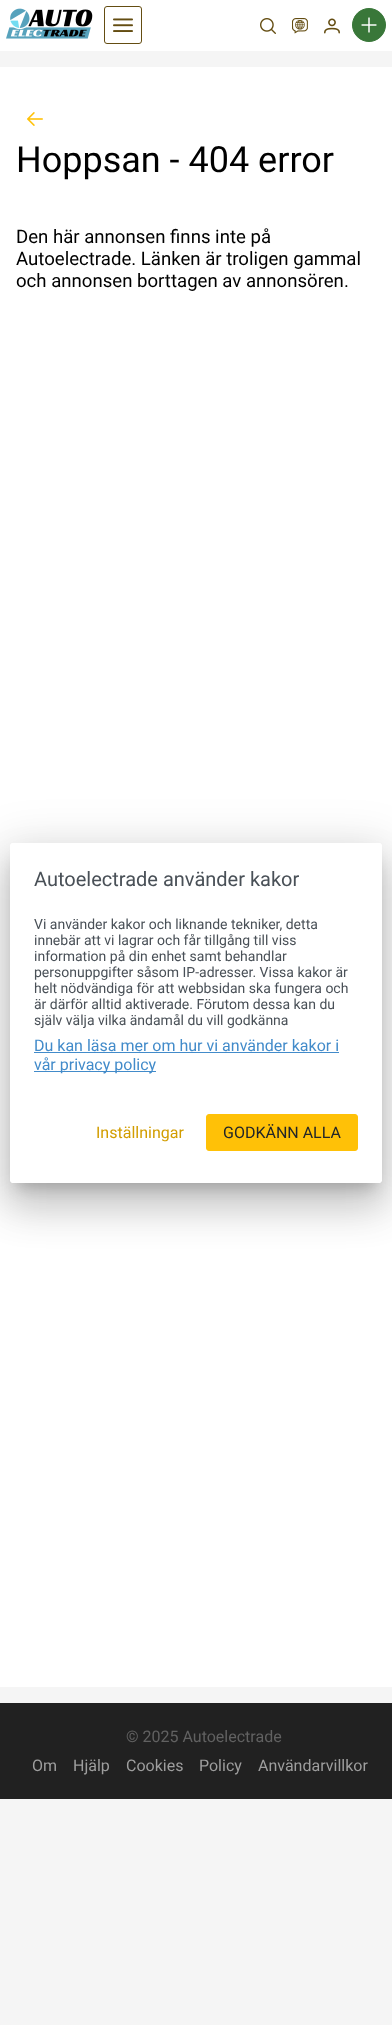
<svg xmlns="http://www.w3.org/2000/svg" xmlns:xlink="http://www.w3.org/1999/xlink" width="392" height="2025" viewBox="0 0 392 2025">
<style>
.cls-1{font:36px Roboto;fill:#000000}
.cls-2{font:18.6px Roboto;fill:#000000}
.cls-3{font:16px Roboto;fill:#616161}
.cls-4{font:16px Roboto;fill:#9e9e9e}
.cls-5{font:20px Roboto;fill:#495057}
.cls-6{font:14px Roboto;fill:#495057}
.cls-7{font:16px Roboto;fill:#428bca}
.cls-8{font:16px Roboto;fill:#d29d00}
.cls-9{font:16px Roboto;fill:#212529}
</style>
<defs>
<clipPath id="clip1"><path d="M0 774H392V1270H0ZM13 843H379C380.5 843 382 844.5 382 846V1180C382 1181.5 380.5 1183 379 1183H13C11.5 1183 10 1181.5 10 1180V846C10 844.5 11.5 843 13 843Z" clip-rule="evenodd"/></clipPath>
<clipPath id="clip2"><path d="M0 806H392V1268H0ZM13 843H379C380.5 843 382 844.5 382 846V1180C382 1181.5 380.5 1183 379 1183H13C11.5 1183 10 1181.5 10 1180V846C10 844.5 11.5 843 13 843Z" clip-rule="evenodd"/></clipPath>
<clipPath id="clip3"><path d="M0 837H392V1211H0ZM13 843H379C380.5 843 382 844.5 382 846V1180C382 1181.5 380.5 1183 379 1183H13C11.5 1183 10 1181.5 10 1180V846C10 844.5 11.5 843 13 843Z" clip-rule="evenodd"/></clipPath>
</defs>
<rect width="100%" height="100%" fill="#f5f5f5"/>
<rect fill="#ffffff" x="0" y="0" width="392" height="51"/>
<image xlink:href="image0.png" x="6" y="8" width="87" height="31"/>
<rect fill="none" stroke="#644d12" x="104.5" y="6.5" width="37" height="37" rx="2.5"/>
<image xlink:href="image1.png" x="113" y="18" width="20" height="14"/>
<image xlink:href="image2.png" x="260" y="18" width="16" height="16"/>
<image xlink:href="image3.png" x="292" y="18" width="16" height="16"/>
<image xlink:href="image4.png" x="324" y="18" width="16" height="16"/>
<circle fill="#397739" stroke="#397739" cx="369" cy="25" r="16.5"/>
<image xlink:href="image5.png" x="361" y="17" width="16" height="16"/>
<rect fill="#ffffff" x="0" y="67" width="392" height="1620"/>
<image xlink:href="image6.png" x="27" y="112" width="16" height="14"/>
<rect fill="#212121" x="0" y="1703" width="392" height="96"/>
<g clip-path="url(#clip1)">
<rect fill="#000000" fill-opacity="0.12" filter="blur(23px)" x="2" y="844" width="388" height="356" rx="11"/>
</g>
<g clip-path="url(#clip2)">
<rect fill="#000000" fill-opacity="0.14" filter="blur(19px)" x="7" y="864" width="378" height="346" rx="6"/>
</g>
<g clip-path="url(#clip3)">
<rect fill="#000000" fill-opacity="0.2" filter="blur(7.5px)" x="17" y="861" width="358" height="326"/>
</g>
<path fill="#ffffff" d="M13 843H379C380.5 843 382 844.5 382 846V916H10V846C10 844.5 11.5 843 13 843Z"/>
<rect fill="#428bca" x="34" y="1052" width="305" height="1"/>
<rect fill="#428bca" x="34" y="1071" width="122" height="1"/>
<path fill="#ffffff" d="M10 1114H382V1180C382 1181.5 380.5 1183 379 1183H13C11.5 1183 10 1181.5 10 1180Z"/>
<rect fill="#ffc107" stroke="#ffc107" x="206.5" y="1114.5" width="151" height="36" rx="2.5"/>
<text class="cls-1" x="16" y="172">Hoppsan - 404 error</text>
<text class="cls-2"><tspan x="16" y="243">Den här annonsen finns inte på</tspan><tspan x="16" y="265">Autoelectrade. Länken är troligen gammal</tspan><tspan x="16" y="287">och annonsen borttagen av annonsören.</tspan></text>
<text class="cls-3" x="126" y="1742">© 2025 Autoelectrade</text>
<text class="cls-4" x="32" y="1771">Om</text>
<text class="cls-4" x="73" y="1771">Hjälp</text>
<text class="cls-4" x="126" y="1771">Cookies</text>
<text class="cls-4" x="199" y="1771">Policy</text>
<text class="cls-4" x="258" y="1771">Användarvillkor</text>
<text class="cls-5" x="34" y="886">Autoelectrade använder kakor</text>
<text class="cls-6"><tspan x="34" y="929">Vi använder kakor och liknande tekniker, detta</tspan><tspan x="34" y="945">innebär att vi lagrar och får tillgång till viss</tspan><tspan x="34" y="961">information på din enhet samt behandlar</tspan><tspan x="34" y="977">personuppgifter såsom IP-adresser. Vissa kakor är</tspan><tspan x="34" y="993">helt nödvändiga för att webbsidan ska fungera och</tspan><tspan x="34" y="1009">är därför alltid aktiverade. Förutom dessa kan du</tspan><tspan x="34" y="1025">själv välja vilka ändamål du vill godkänna</tspan></text>
<text class="cls-7"><tspan x="34" y="1051">Du kan läsa mer om hur vi använder kakor i</tspan><tspan x="34" y="1070">vår privacy policy</tspan></text>
<text class="cls-8" x="96" y="1138">Inställningar</text>
<text class="cls-9" x="223" y="1138">GODKÄNN ALLA</text>
</svg>
